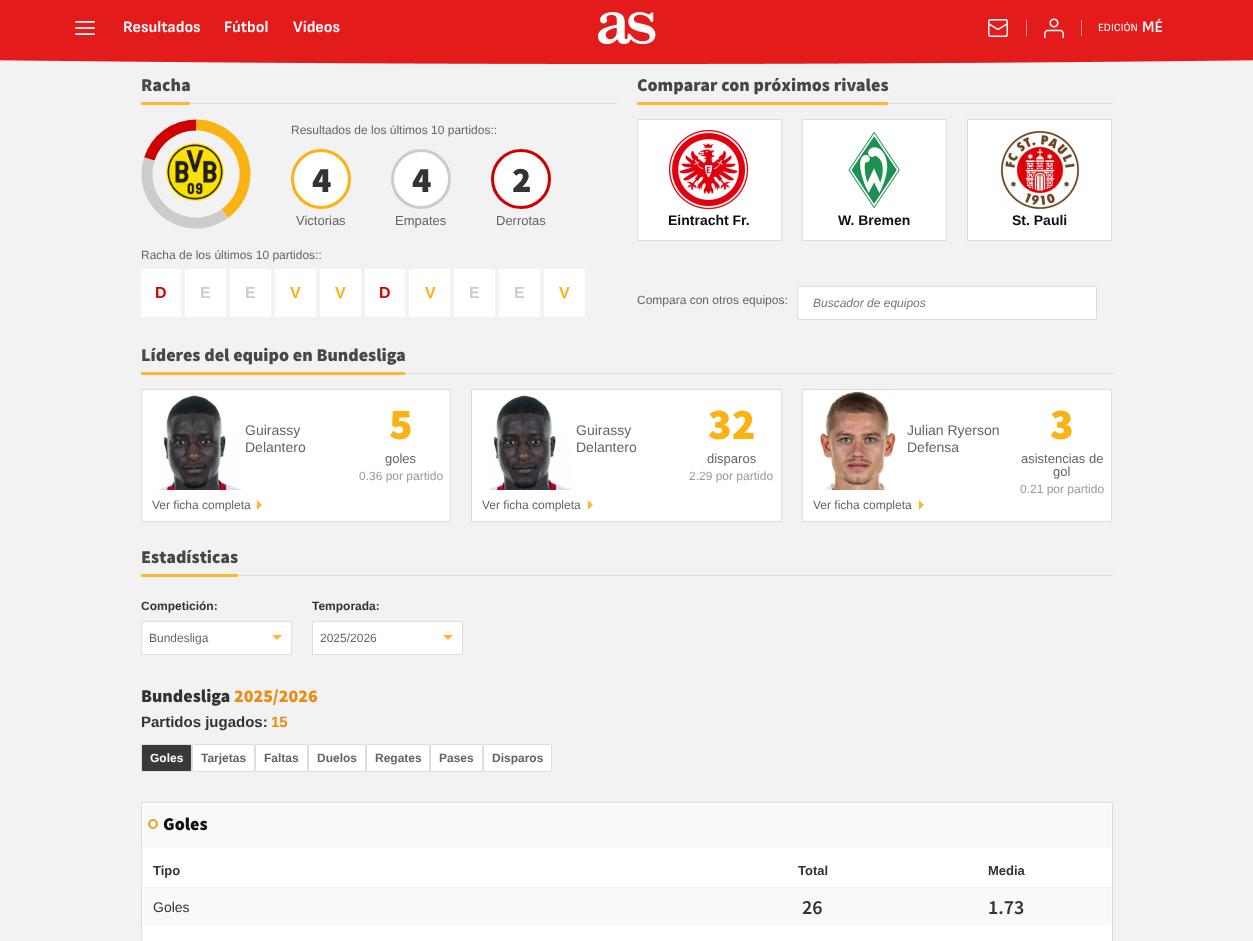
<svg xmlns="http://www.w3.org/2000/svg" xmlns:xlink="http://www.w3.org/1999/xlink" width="1253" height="941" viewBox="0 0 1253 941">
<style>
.cls-1{font:bold 16px Sofia Sans;fill:#ffffff}
.cls-2{font:11px Sofia Sans;fill:#ffffff}
.cls-3{font:600 16px Sofia Sans;fill:#ffffff}
.cls-4{font:900 18px Source Sans Pro;fill:#474747}
.cls-5{font:12px Liberation Sans;fill:#646464}
.cls-6{font:900 36px Source Sans Pro;fill:#333333}
.cls-7{font:13px Liberation Sans;fill:#646464}
.cls-8{font:bold 16px Liberation Sans;fill:#ce0000}
.cls-9{font:bold 16px Liberation Sans;fill:#cccccc}
.cls-10{font:bold 16px Liberation Sans;fill:#fab215}
.cls-11{font:bold 14px Liberation Sans;fill:#101010}
.cls-12{font:italic 12px Liberation Sans;fill:#757575}
.cls-13{font:14px Liberation Sans;fill:#646464}
.cls-14{font:900 44px Source Sans Pro;fill:#fab215}
.cls-15{font:12px Liberation Sans;fill:#999999}
.cls-16{font:bold 12px Liberation Sans;fill:#333333}
.cls-17{font:900 18px Source Sans Pro;fill:#333333}
.cls-18{font:900 18px Source Sans Pro;fill:#e98d13}
.cls-19{font:bold 15px Liberation Sans;fill:#333333}
.cls-20{font:bold 15px Liberation Sans;fill:#e98d13}
.cls-21{font:bold 12px Liberation Sans;fill:#ffffff}
.cls-22{font:bold 12px Liberation Sans;fill:#646464}
.cls-23{font:900 18px Source Sans Pro;fill:#101010}
.cls-24{font:bold 13px Liberation Sans;fill:#333333}
.cls-25{font:14px Liberation Sans;fill:#333333}
.cls-26{font:600 20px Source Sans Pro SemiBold;fill:#333333}
</style>
<rect width="100%" height="100%" fill="#f2f2f2"/>
<image xlink:href="image0.png" x="0" y="0" width="1253" height="64"/>
<image xlink:href="image1.png" x="75" y="21" width="20" height="14"/>
<image xlink:href="image2.png" x="598" y="12" width="58" height="32"/>
<image xlink:href="image3.png" x="988" y="19" width="20" height="18"/>
<rect fill="#f28d8d" x="1026" y="20" width="1" height="16"/>
<image xlink:href="image4.png" x="1044" y="18" width="20" height="20"/>
<rect fill="#f28d8d" x="1081" y="20" width="1" height="16"/>
<rect fill="#dddddd" x="190" y="103" width="427" height="1"/>
<rect fill="#ffb632" x="141" y="102" width="49" height="3"/>
<image xlink:href="image5.png" x="141" y="119" width="110" height="110"/>
<image xlink:href="image6.png" x="165" y="142" width="60" height="60"/>
<circle fill="#ffffff" stroke="#fab215" stroke-width="3" cx="321" cy="179" r="28.5"/>
<circle fill="#ffffff" stroke="#cccccc" stroke-width="3" cx="421" cy="179" r="28.5"/>
<circle fill="#ffffff" stroke="#ce0000" stroke-width="3" cx="521" cy="179" r="28.5"/>
<rect fill="#ffffff" x="141" y="269" width="40" height="48"/>
<rect fill="#ffffff" x="185" y="269" width="41" height="48"/>
<rect fill="#ffffff" x="230" y="269" width="41" height="48"/>
<rect fill="#ffffff" x="275" y="269" width="41" height="48"/>
<rect fill="#ffffff" x="320" y="269" width="41" height="48"/>
<rect fill="#ffffff" x="365" y="269" width="40" height="48"/>
<rect fill="#ffffff" x="409" y="269" width="41" height="48"/>
<rect fill="#ffffff" x="454" y="269" width="41" height="48"/>
<rect fill="#ffffff" x="499" y="269" width="41" height="48"/>
<rect fill="#ffffff" x="544" y="269" width="41" height="48"/>
<rect fill="#dddddd" x="888" y="103" width="225" height="1"/>
<rect fill="#ffb632" x="637" y="102" width="251" height="3"/>
<rect fill="#ffffff" stroke="#dddddd" x="637.5" y="119.5" width="144" height="121"/>
<image xlink:href="image7.png" x="669" y="130" width="80" height="80"/>
<rect fill="#ffffff" stroke="#dddddd" x="802.5" y="119.5" width="144" height="121"/>
<image xlink:href="image8.png" x="848" y="131" width="52" height="78"/>
<rect fill="#ffffff" stroke="#dddddd" x="967.5" y="119.5" width="144" height="121"/>
<image xlink:href="image9.png" x="1000" y="130" width="80" height="80"/>
<rect fill="#ffffff" stroke="#dddddd" x="797.5" y="286.5" width="299" height="33" rx="1.5"/>
<rect fill="#dddddd" x="405" y="373" width="708" height="1"/>
<rect fill="#ffb632" x="141" y="372" width="264" height="3"/>
<rect fill="#ffffff" stroke="#dddddd" x="141.5" y="389.5" width="309" height="132"/>
<image xlink:href="image10.png" x="158" y="395" width="84" height="95"/>
<path fill="#ffb632" d="M257 510V500L262 505Z"/>
<rect fill="#ffffff" stroke="#dddddd" x="471.5" y="389.5" width="310" height="132"/>
<image xlink:href="image10.png" x="488" y="395" width="84" height="95"/>
<path fill="#ffb632" d="M588 510V500L593 505Z"/>
<rect fill="#ffffff" stroke="#dddddd" x="802.5" y="389.5" width="309" height="132"/>
<image xlink:href="image11.png" x="820" y="391" width="76" height="99"/>
<path fill="#ffb632" d="M919 510V500L924 505Z"/>
<rect fill="#dddddd" x="238" y="575" width="875" height="1"/>
<rect fill="#ffb632" x="141" y="574" width="97" height="3"/>
<rect fill="#ffffff" stroke="#dddddd" x="141.5" y="621.5" width="150" height="33" rx="0.5"/>
<path fill="#ffb632" d="M272 635H282L277 640Z"/>
<rect fill="#ffffff" stroke="#dddddd" x="312.5" y="621.5" width="150" height="33" rx="0.5"/>
<path fill="#ffb632" d="M443 635H453L448 640Z"/>
<rect fill="#393939" stroke="#dddddd" x="141.5" y="744.5" width="50" height="27" rx="1.5"/>
<rect fill="#ffffff" stroke="#dddddd" x="192.5" y="744.5" width="62" height="27" rx="1.5"/>
<rect fill="#ffffff" stroke="#dddddd" x="255.5" y="744.5" width="52" height="27" rx="1.5"/>
<rect fill="#ffffff" stroke="#dddddd" x="308.5" y="744.5" width="57" height="27" rx="1.5"/>
<rect fill="#ffffff" stroke="#dddddd" x="366.5" y="744.5" width="63" height="27" rx="1.5"/>
<rect fill="#ffffff" stroke="#dddddd" x="430.5" y="744.5" width="52" height="27" rx="1.5"/>
<rect fill="#ffffff" stroke="#dddddd" x="483.5" y="744.5" width="68" height="27" rx="1.5"/>
<rect fill="#ffffff" stroke="#dddddd" x="141.5" y="802.5" width="971" height="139"/>
<rect fill="#f9f9f9" x="143" y="804" width="968" height="42"/>
<rect fill="#f2f2f2" x="143" y="846" width="968" height="1"/>
<circle fill="none" stroke="#ec9f23" stroke-width="2" cx="153" cy="824" r="4"/>
<rect fill="#f2f2f2" x="142" y="887" width="969" height="1"/>
<rect fill="#f9f9f9" x="143" y="888" width="968" height="38"/>
<text class="cls-1" x="123" y="32">Resultados</text>
<text class="cls-1" x="224" y="32">Fútbol</text>
<text class="cls-1" x="293" y="32">Vídeos</text>
<text class="cls-2" x="1098" y="31">EDICIÓN</text>
<text class="cls-3" x="1142" y="32">MÉ</text>
<text class="cls-4" x="141" y="91">Racha</text>
<text class="cls-5" x="291" y="134">Resultados de los últimos 10 partidos::</text>
<text class="cls-6" x="312" y="192">4</text>
<text class="cls-7" x="296" y="225">Victorias</text>
<text class="cls-6" x="412" y="192">4</text>
<text class="cls-7" x="395" y="225">Empates</text>
<text class="cls-6" x="512" y="192">2</text>
<text class="cls-7" x="496" y="225">Derrotas</text>
<text class="cls-5" x="141" y="259">Racha de los últimos 10 partidos::</text>
<text class="cls-8" x="155" y="298">D</text>
<text class="cls-9" x="200" y="298">E</text>
<text class="cls-9" x="245" y="298">E</text>
<text class="cls-10" x="290" y="298">V</text>
<text class="cls-10" x="335" y="298">V</text>
<text class="cls-8" x="379" y="298">D</text>
<text class="cls-10" x="425" y="298">V</text>
<text class="cls-9" x="469" y="298">E</text>
<text class="cls-9" x="514" y="298">E</text>
<text class="cls-10" x="559" y="298">V</text>
<text class="cls-4" x="637" y="91">Comparar con próximos rivales</text>
<text class="cls-11" x="668" y="225">Eintracht Fr.</text>
<text class="cls-11" x="838" y="225">W. Bremen</text>
<text class="cls-11" x="1012" y="225">St. Pauli</text>
<text class="cls-5" x="637" y="304">Compara con otros equipos:</text>
<text class="cls-12" x="813" y="307">Buscador de equipos</text>
<text class="cls-4" x="141" y="361">Líderes del equipo en Bundesliga</text>
<text class="cls-13"><tspan x="245" y="435">Guirassy</tspan><tspan x="245" y="452">Delantero</tspan></text>
<text class="cls-14" x="389" y="439">5</text>
<text class="cls-7" x="385" y="463">goles</text>
<text class="cls-15" x="359" y="480">0.36 por partido</text>
<text class="cls-5" x="152" y="509">Ver ficha completa</text>
<text class="cls-13"><tspan x="576" y="435">Guirassy</tspan><tspan x="576" y="452">Delantero</tspan></text>
<text class="cls-14" x="708" y="439">32</text>
<text class="cls-7" x="707" y="463">disparos</text>
<text class="cls-15" x="689" y="480">2.29 por partido</text>
<text class="cls-5" x="482" y="509">Ver ficha completa</text>
<text class="cls-13"><tspan x="907" y="435">Julian Ryerson</tspan><tspan x="907" y="452">Defensa</tspan></text>
<text class="cls-14" x="1050" y="439">3</text>
<text class="cls-7" x="1021" y="463">asistencias de</text>
<text class="cls-7" x="1053" y="476">gol</text>
<text class="cls-15" x="1020" y="493">0.21 por partido</text>
<text class="cls-5" x="813" y="509">Ver ficha completa</text>
<text class="cls-4" x="141" y="563">Estadísticas</text>
<text class="cls-16" x="141" y="610">Competición:</text>
<text class="cls-5" x="149" y="642">Bundesliga</text>
<text class="cls-16" x="312" y="610">Temporada:</text>
<text class="cls-5" x="320" y="642">2025/2026</text>
<text class="cls-17" x="141" y="702">Bundesliga</text>
<text class="cls-18" x="234" y="702">2025/2026</text>
<text class="cls-19" x="141" y="727">Partidos jugados:</text>
<text class="cls-20" x="271" y="727">15</text>
<text class="cls-21" x="150" y="762">Goles</text>
<text class="cls-22" x="201" y="762">Tarjetas</text>
<text class="cls-22" x="264" y="762">Faltas</text>
<text class="cls-22" x="317" y="762">Duelos</text>
<text class="cls-22" x="375" y="762">Regates</text>
<text class="cls-22" x="439" y="762">Pases</text>
<text class="cls-22" x="492" y="762">Disparos</text>
<text class="cls-23" x="163" y="830">Goles</text>
<text class="cls-24" x="153" y="875">Tipo</text>
<text class="cls-24" x="798" y="875">Total</text>
<text class="cls-24" x="988" y="875">Media</text>
<text class="cls-25" x="153" y="912">Goles</text>
<text class="cls-26" x="802" y="914">26</text>
<text class="cls-26" x="988" y="914">1.73</text>
</svg>
